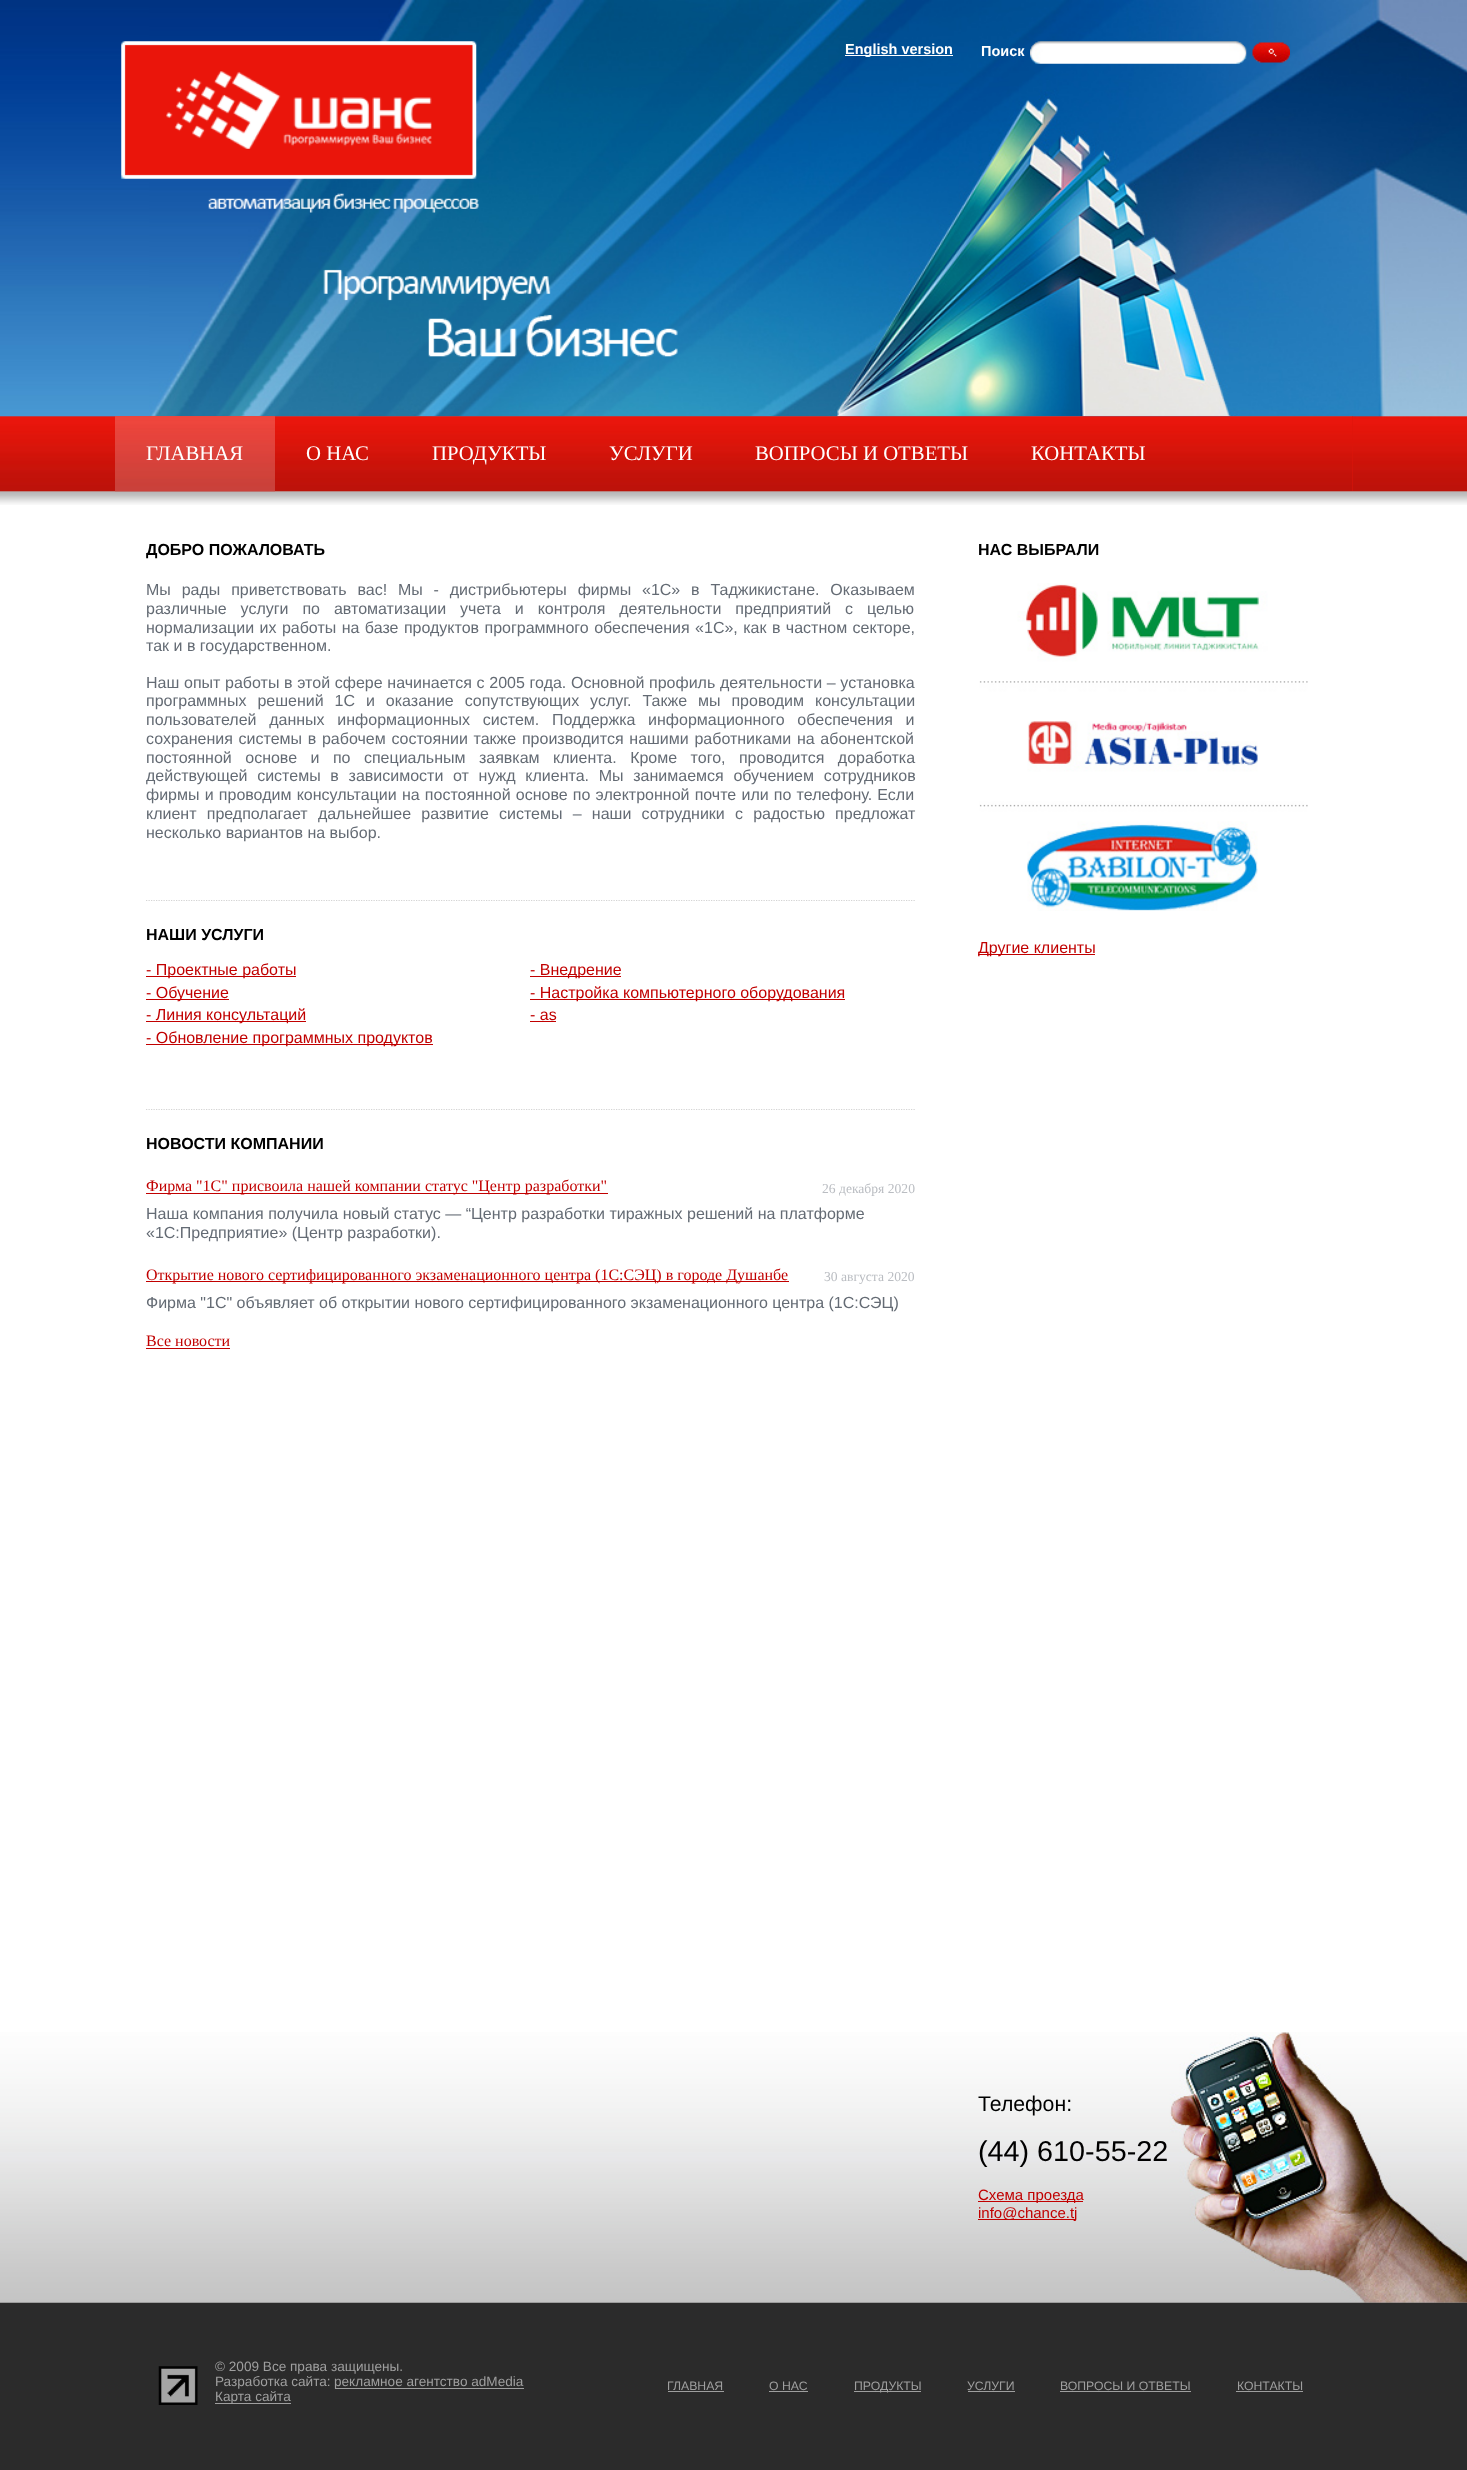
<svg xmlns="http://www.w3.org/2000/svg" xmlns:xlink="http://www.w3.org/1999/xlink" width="1467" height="2470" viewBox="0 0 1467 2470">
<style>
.cls-1{font:bold 14.5px Liberation Sans;fill:#ffffff}
.cls-2{font:20.75px Liberation Serif;fill:#ffffff}
.cls-3{font:bold 16px Liberation Sans;fill:#000000}
.cls-4{font:16px Liberation Sans;fill:#646b74}
.cls-5{font:16px Liberation Sans;fill:#c10000}
.cls-6{font:16px Liberation Serif;fill:#c10000}
.cls-7{font:13.6px Liberation Serif;fill:#babdc2}
.cls-8{font:21.25px Liberation Sans;fill:#000000}
.cls-9{font:28.75px Liberation Sans;fill:#000000}
.cls-10{font:15px Liberation Sans;fill:#c10000}
.cls-11{font:13.6px Liberation Sans;fill:#9f9f9f}
.cls-12{font:12.25px Liberation Sans;fill:#9f9f9f}
</style>
<rect width="100%" height="100%" fill="#ffffff"/>
<image xlink:href="image0.png" x="0" y="0" width="1467" height="505"/>
<image xlink:href="image1.png" x="0" y="2302" width="1467" height="168"/>
<image xlink:href="image2.png" x="149" y="0" width="1318" height="420"/>
<image xlink:href="image3.png" x="121" y="41" width="356" height="138"/>
<rect fill="#ffffff" x="845" y="55" width="108" height="1"/>
<image xlink:href="image4.png" x="1030" y="41" width="217" height="23"/>
<image xlink:href="image5.png" x="1252" y="42" width="38" height="21"/>
<image xlink:href="image6.png" x="208" y="193" width="470" height="164"/>
<rect fill="#dc140b" x="275" y="416" width="1078" height="75"/>
<image xlink:href="image7.png" x="275" y="416" width="1078" height="75"/>
<rect fill="#e94740" x="115" y="416" width="160" height="1"/>
<image xlink:href="image8.png" x="115" y="417" width="160" height="75"/>
<path fill="none" stroke="#d4d4d4" stroke-width="1.2" stroke-dasharray="1.25 1.25" d="M146 900.5H915"/>
<rect fill="#c10000" x="146" y="976" width="150" height="1"/>
<rect fill="#c10000" x="530" y="976" width="91" height="1"/>
<rect fill="#c10000" x="146" y="999" width="83" height="1"/>
<rect fill="#c10000" x="530" y="999" width="315" height="1"/>
<rect fill="#c10000" x="146" y="1021" width="160" height="1"/>
<rect fill="#c10000" x="530" y="1021" width="26" height="1"/>
<rect fill="#c10000" x="146" y="1044" width="287" height="1"/>
<path fill="none" stroke="#d4d4d4" stroke-width="1.2" stroke-dasharray="1.25 1.25" d="M146 1109.5H915"/>
<rect fill="#c10000" x="146" y="1193" width="462" height="1"/>
<rect fill="#c10000" x="146" y="1281" width="643" height="1"/>
<rect fill="#c10000" x="146" y="1348" width="84" height="1"/>
<image xlink:href="image9.png" x="979" y="583" width="329" height="328"/>
<rect fill="#c10000" x="978" y="954" width="117" height="1"/>
<image xlink:href="image10.png" x="0" y="2032" width="1467" height="271"/>
<rect fill="#c10000" x="978" y="2201" width="105" height="1"/>
<rect fill="#c10000" x="978" y="2219" width="98" height="1"/>
<image xlink:href="image11.png" x="158" y="2366" width="40" height="39"/>
<rect fill="#9f9f9f" x="335" y="2388" width="189" height="1"/>
<rect fill="#9f9f9f" x="215" y="2403" width="76" height="1"/>
<rect fill="#9f9f9f" x="668" y="2391" width="56" height="1"/>
<rect fill="#9f9f9f" x="769" y="2391" width="39" height="1"/>
<rect fill="#9f9f9f" x="854" y="2391" width="67" height="1"/>
<rect fill="#9f9f9f" x="968" y="2391" width="47" height="1"/>
<rect fill="#9f9f9f" x="1060" y="2391" width="131" height="1"/>
<rect fill="#9f9f9f" x="1236" y="2391" width="67" height="1"/>
<text class="cls-1" x="845" y="54">English version</text>
<text class="cls-1" x="981" y="56">Поиск</text>
<text class="cls-2" x="146" y="460">ГЛАВНАЯ</text>
<text class="cls-2" x="306" y="460">О НАС</text>
<text class="cls-2" x="432" y="460">ПРОДУКТЫ</text>
<text class="cls-2" x="609" y="460">УСЛУГИ</text>
<text class="cls-2" x="755" y="460">ВОПРОСЫ И ОТВЕТЫ</text>
<text class="cls-2" x="1031" y="460">КОНТАКТЫ</text>
<text class="cls-3" x="146" y="555">ДОБРО ПОЖАЛОВАТЬ</text>
<text class="cls-4"><tspan x="146" y="595" word-spacing="6.4">Мы рады приветствовать вас! Мы - дистрибьютеры фирмы «1С» в Таджикистане. Оказываем</tspan><tspan x="146" y="614" word-spacing="9.5">различные услуги по автоматизации учета и контроля деятельности предприятий с целью</tspan><tspan x="146" y="633" word-spacing="1">нормализации их работы на базе продуктов программного обеспечения «1С», как в частном секторе,</tspan><tspan x="146" y="651">так и в государственном.</tspan></text>
<text class="cls-4"><tspan x="146" y="688" word-spacing="0.25">Наш опыт работы в этой сфере начинается с 2005 года. Основной профиль деятельности – установка</tspan><tspan x="146" y="706" word-spacing="6.5">программных решений 1С и оказание сопутствующих услуг. Также мы проводим консультации</tspan><tspan x="146" y="725" word-spacing="8.25">пользователей данных информационных систем. Поддержка информационного обеспечения и</tspan><tspan x="146" y="744" word-spacing="1.25">сохранения системы в рабочем состоянии также производится нашими работниками на абонентской</tspan><tspan x="146" y="763" word-spacing="9">постоянной основе и по специальным заявкам клиента. Кроме того, проводится доработка</tspan><tspan x="146" y="781" word-spacing="5.25">действующей системы в зависимости от нужд клиента. Мы занимаемся обучением сотрудников</tspan><tspan x="146" y="800" word-spacing="0.75">фирмы и проводим консультации на постоянной основе по электронной почте или по телефону. Если</tspan><tspan x="146" y="819" word-spacing="5.75">клиент предполагает дальнейшее развитие системы – наши сотрудники с радостью предложат</tspan><tspan x="146" y="838">несколько вариантов на выбор.</tspan></text>
<text class="cls-3" x="146" y="940">НАШИ УСЛУГИ</text>
<text class="cls-5" x="146" y="975">- Проектные работы</text>
<text class="cls-5" x="530" y="975">- Внедрение</text>
<text class="cls-5" x="146" y="998">- Обучение</text>
<text class="cls-5" x="530" y="998">- Настройка компьютерного оборудования</text>
<text class="cls-5" x="146" y="1020">- Линия консультаций</text>
<text class="cls-5" x="530" y="1020">- as</text>
<text class="cls-5" x="146" y="1043">- Обновление программных продуктов</text>
<text class="cls-3" x="146" y="1149">НОВОСТИ КОМПАНИИ</text>
<text class="cls-6" x="146" y="1191">Фирма "1С" присвоила нашей компании статус "Центр разработки"</text>
<text class="cls-7" x="822" y="1193">26 декабря 2020</text>
<text class="cls-4"><tspan x="146" y="1219">Наша компания получила новый статус — “Центр разработки тиражных решений на платформе</tspan><tspan x="146" y="1238">«1С:Предприятие» (Центр разработки).</tspan></text>
<text class="cls-6" x="146" y="1280">Открытие нового сертифицированного экзаменационного центра (1С:СЭЦ) в городе Душанбе</text>
<text class="cls-7" x="824" y="1281">30 августа 2020</text>
<text class="cls-4" x="146" y="1308">Фирма "1С" объявляет об открытии нового сертифицированного экзаменационного центра (1С:СЭЦ)</text>
<text class="cls-6" x="146" y="1346">Все новости</text>
<text class="cls-3" x="978" y="555">НАС ВЫБРАЛИ</text>
<text class="cls-5" x="978" y="953">Другие клиенты</text>
<text class="cls-8" x="978" y="2111">Телефон:</text>
<text class="cls-9" x="978" y="2161">(44) 610-55-22</text>
<text class="cls-10"><tspan x="978" y="2200">Схема проезда</tspan><tspan x="978" y="2218">info@chance.tj</tspan></text>
<text class="cls-11"><tspan x="215" y="2371">© 2009 Все права защищены.</tspan><tspan x="215" y="2386">Разработка сайта:</tspan></text>
<text class="cls-11" x="334" y="2386">рекламное агентство adMedia</text>
<text class="cls-11" x="215" y="2401">Карта сайта</text>
<text class="cls-12" x="667" y="2390">ГЛАВНАЯ</text>
<text class="cls-12" x="769" y="2390">О НАС</text>
<text class="cls-12" x="854" y="2390">ПРОДУКТЫ</text>
<text class="cls-12" x="967" y="2390">УСЛУГИ</text>
<text class="cls-12" x="1060" y="2390">ВОПРОСЫ И ОТВЕТЫ</text>
<text class="cls-12" x="1237" y="2390">КОНТАКТЫ</text>
</svg>
